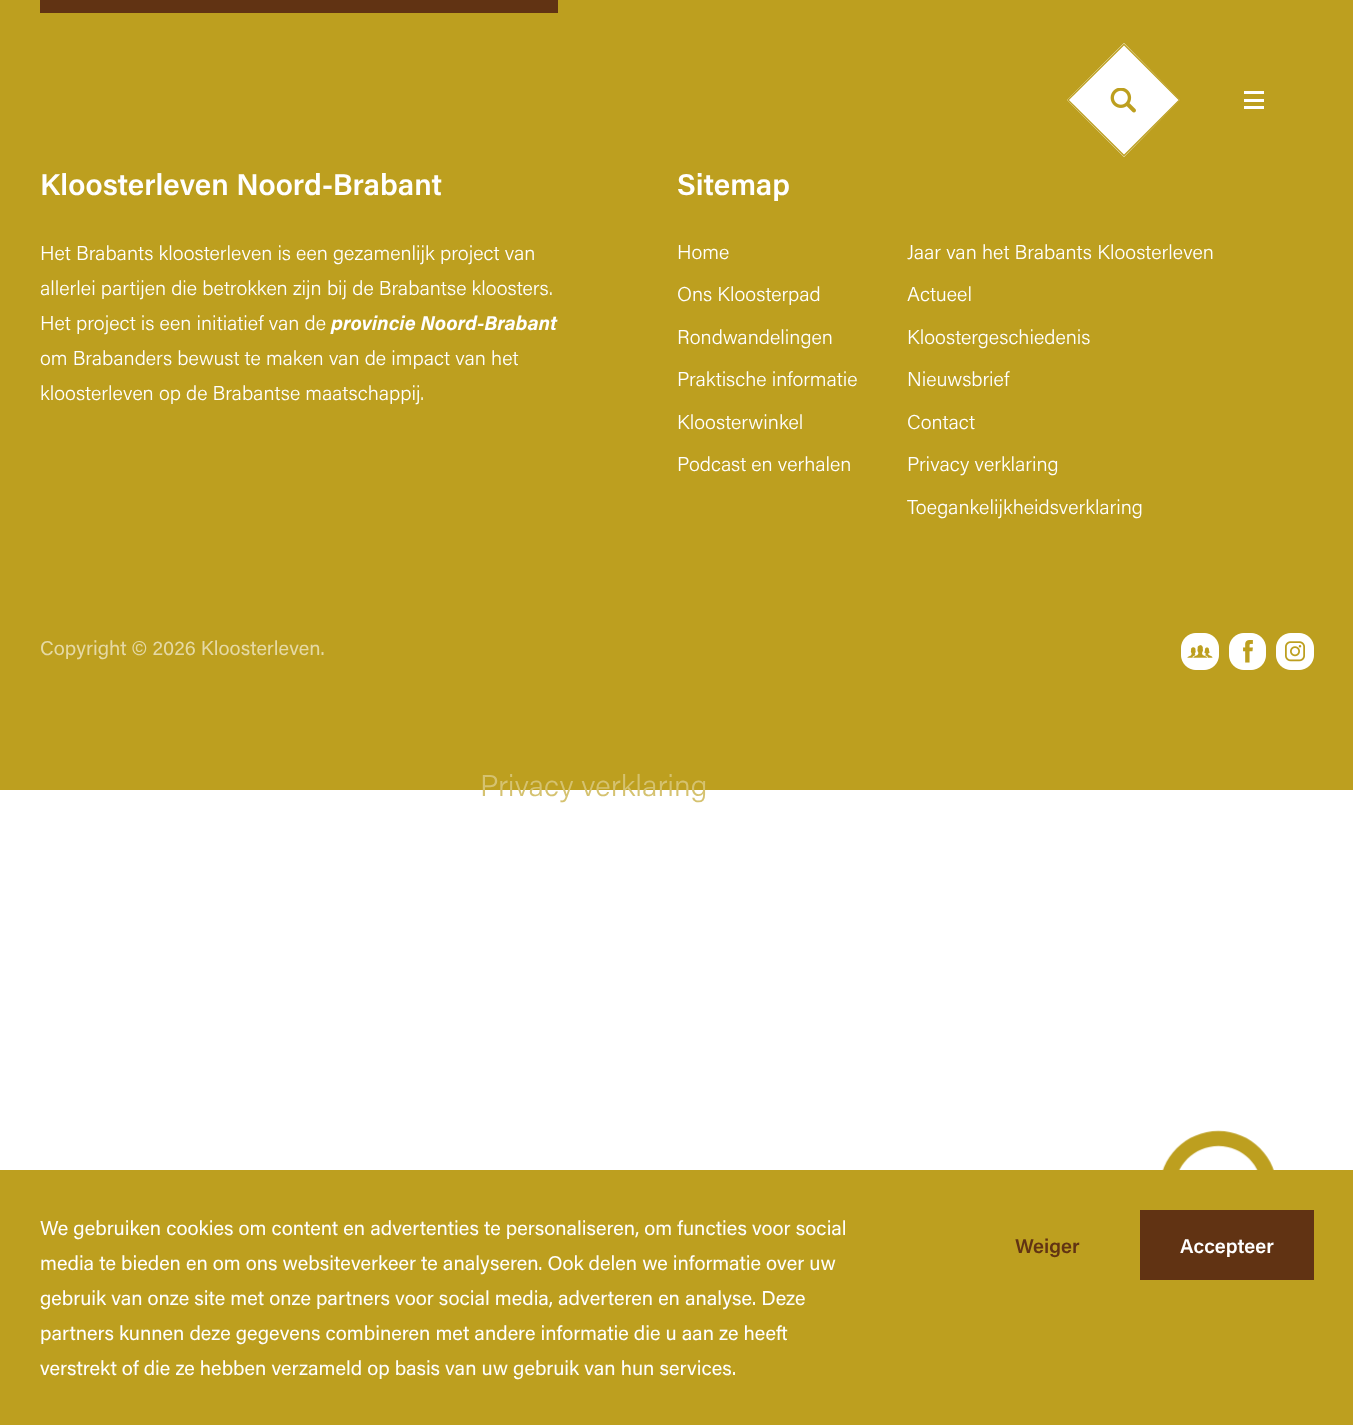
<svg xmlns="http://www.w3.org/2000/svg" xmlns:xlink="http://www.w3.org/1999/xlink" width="1353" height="1425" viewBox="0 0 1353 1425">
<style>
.cls-1{font:600 30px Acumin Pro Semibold;fill:#ffffff}
.cls-2{font:300 20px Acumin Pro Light;fill:#ffffff}
.cls-3{font:italic bold 20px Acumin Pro;fill:#ffffff}
.cls-4{font:20px Acumin Pro;fill:#e5d9a5}
.cls-5{font:20px Acumin Pro;fill:#ffffff}
.cls-6{font:600 20px Acumin Pro Semibold;fill:#613313}
.cls-7{font:600 20px Acumin Pro Semibold;fill:#ffffff}
.cls-8{font:300 30px Acumin Pro Light;fill:#d5c270}
</style>
<rect width="100%" height="100%" fill="#ffffff"/>
<rect fill="#bd9f1f" x="0" y="0" width="1353" height="790"/>
<rect fill="#613313" x="40" y="0" width="518" height="13"/>
<image xlink:href="image0.png" x="1181" y="633" width="38" height="37"/>
<image xlink:href="image1.png" x="1229" y="633" width="37" height="37"/>
<image xlink:href="image2.png" x="1276" y="633" width="38" height="37"/>
<rect fill="#bd9f1f" x="0" y="1170" width="1353" height="255"/>
<rect fill="#613313" x="1140" y="1210" width="174" height="70"/>
<path fill="#ffffff" d="M1124 43L1180 100L1124 157L1067 100Z"/>
<path fill="none" stroke="#bd9f1f" stroke-width="1.3" d="M1124 44.5L1179.5 100L1124 155.5L1068 100Z"/>
<image xlink:href="image3.png" x="1110" y="88" width="26" height="25"/>
<rect fill="#ffffff" x="1244" y="91" width="20" height="3"/>
<rect fill="#ffffff" x="1244" y="99" width="20" height="3"/>
<rect fill="#ffffff" x="1244" y="106" width="20" height="3"/>
<image xlink:href="image4.png" x="1145" y="1130" width="136" height="40"/>
<text class="cls-1" x="40" y="195">Kloosterleven Noord-Brabant</text>
<text class="cls-2"><tspan x="40" y="260">Het Brabants kloosterleven is een gezamenlijk project van</tspan><tspan x="40" y="295">allerlei partijen die betrokken zijn bij de Brabantse kloosters.</tspan><tspan x="40" y="330">Het project is een initiatief van de</tspan></text>
<text class="cls-3" x="331" y="330">provincie Noord-Brabant</text>
<text class="cls-2"><tspan x="40" y="365">om Brabanders bewust te maken van de impact van het</tspan><tspan x="40" y="400">kloosterleven op de Brabantse maatschappij.</tspan></text>
<text class="cls-1" x="677" y="195">Sitemap</text>
<text class="cls-2" x="677" y="259">Home</text>
<text class="cls-2" x="677" y="301">Ons Kloosterpad</text>
<text class="cls-2" x="677" y="344">Rondwandelingen</text>
<text class="cls-2" x="677" y="386">Praktische informatie</text>
<text class="cls-2" x="677" y="429">Kloosterwinkel</text>
<text class="cls-2" x="677" y="471">Podcast en verhalen</text>
<text class="cls-2" x="907" y="259">Jaar van het Brabants Kloosterleven</text>
<text class="cls-2" x="907" y="301">Actueel</text>
<text class="cls-2" x="907" y="344">Kloostergeschiedenis</text>
<text class="cls-2" x="907" y="386">Nieuwsbrief</text>
<text class="cls-2" x="907" y="429">Contact</text>
<text class="cls-2" x="907" y="471">Privacy verklaring</text>
<text class="cls-2" x="907" y="514">Toegankelijkheidsverklaring</text>
<text class="cls-4" x="40" y="655">Copyright © 2026 Kloosterleven.</text>
<text class="cls-5"><tspan x="40" y="1235">We gebruiken cookies om content en advertenties te personaliseren, om functies voor social</tspan><tspan x="40" y="1270">media te bieden en om ons websiteverkeer te analyseren. Ook delen we informatie over uw</tspan><tspan x="40" y="1305">gebruik van onze site met onze partners voor social media, adverteren en analyse. Deze</tspan><tspan x="40" y="1340">partners kunnen deze gegevens combineren met andere informatie die u aan ze heeft</tspan><tspan x="40" y="1375">verstrekt of die ze hebben verzameld op basis van uw gebruik van hun services.</tspan></text>
<text class="cls-6" x="1015" y="1253">Weiger</text>
<text class="cls-7" x="1180" y="1253">Accepteer</text>
<text class="cls-8" x="480" y="796">Privacy verklaring</text>
</svg>
